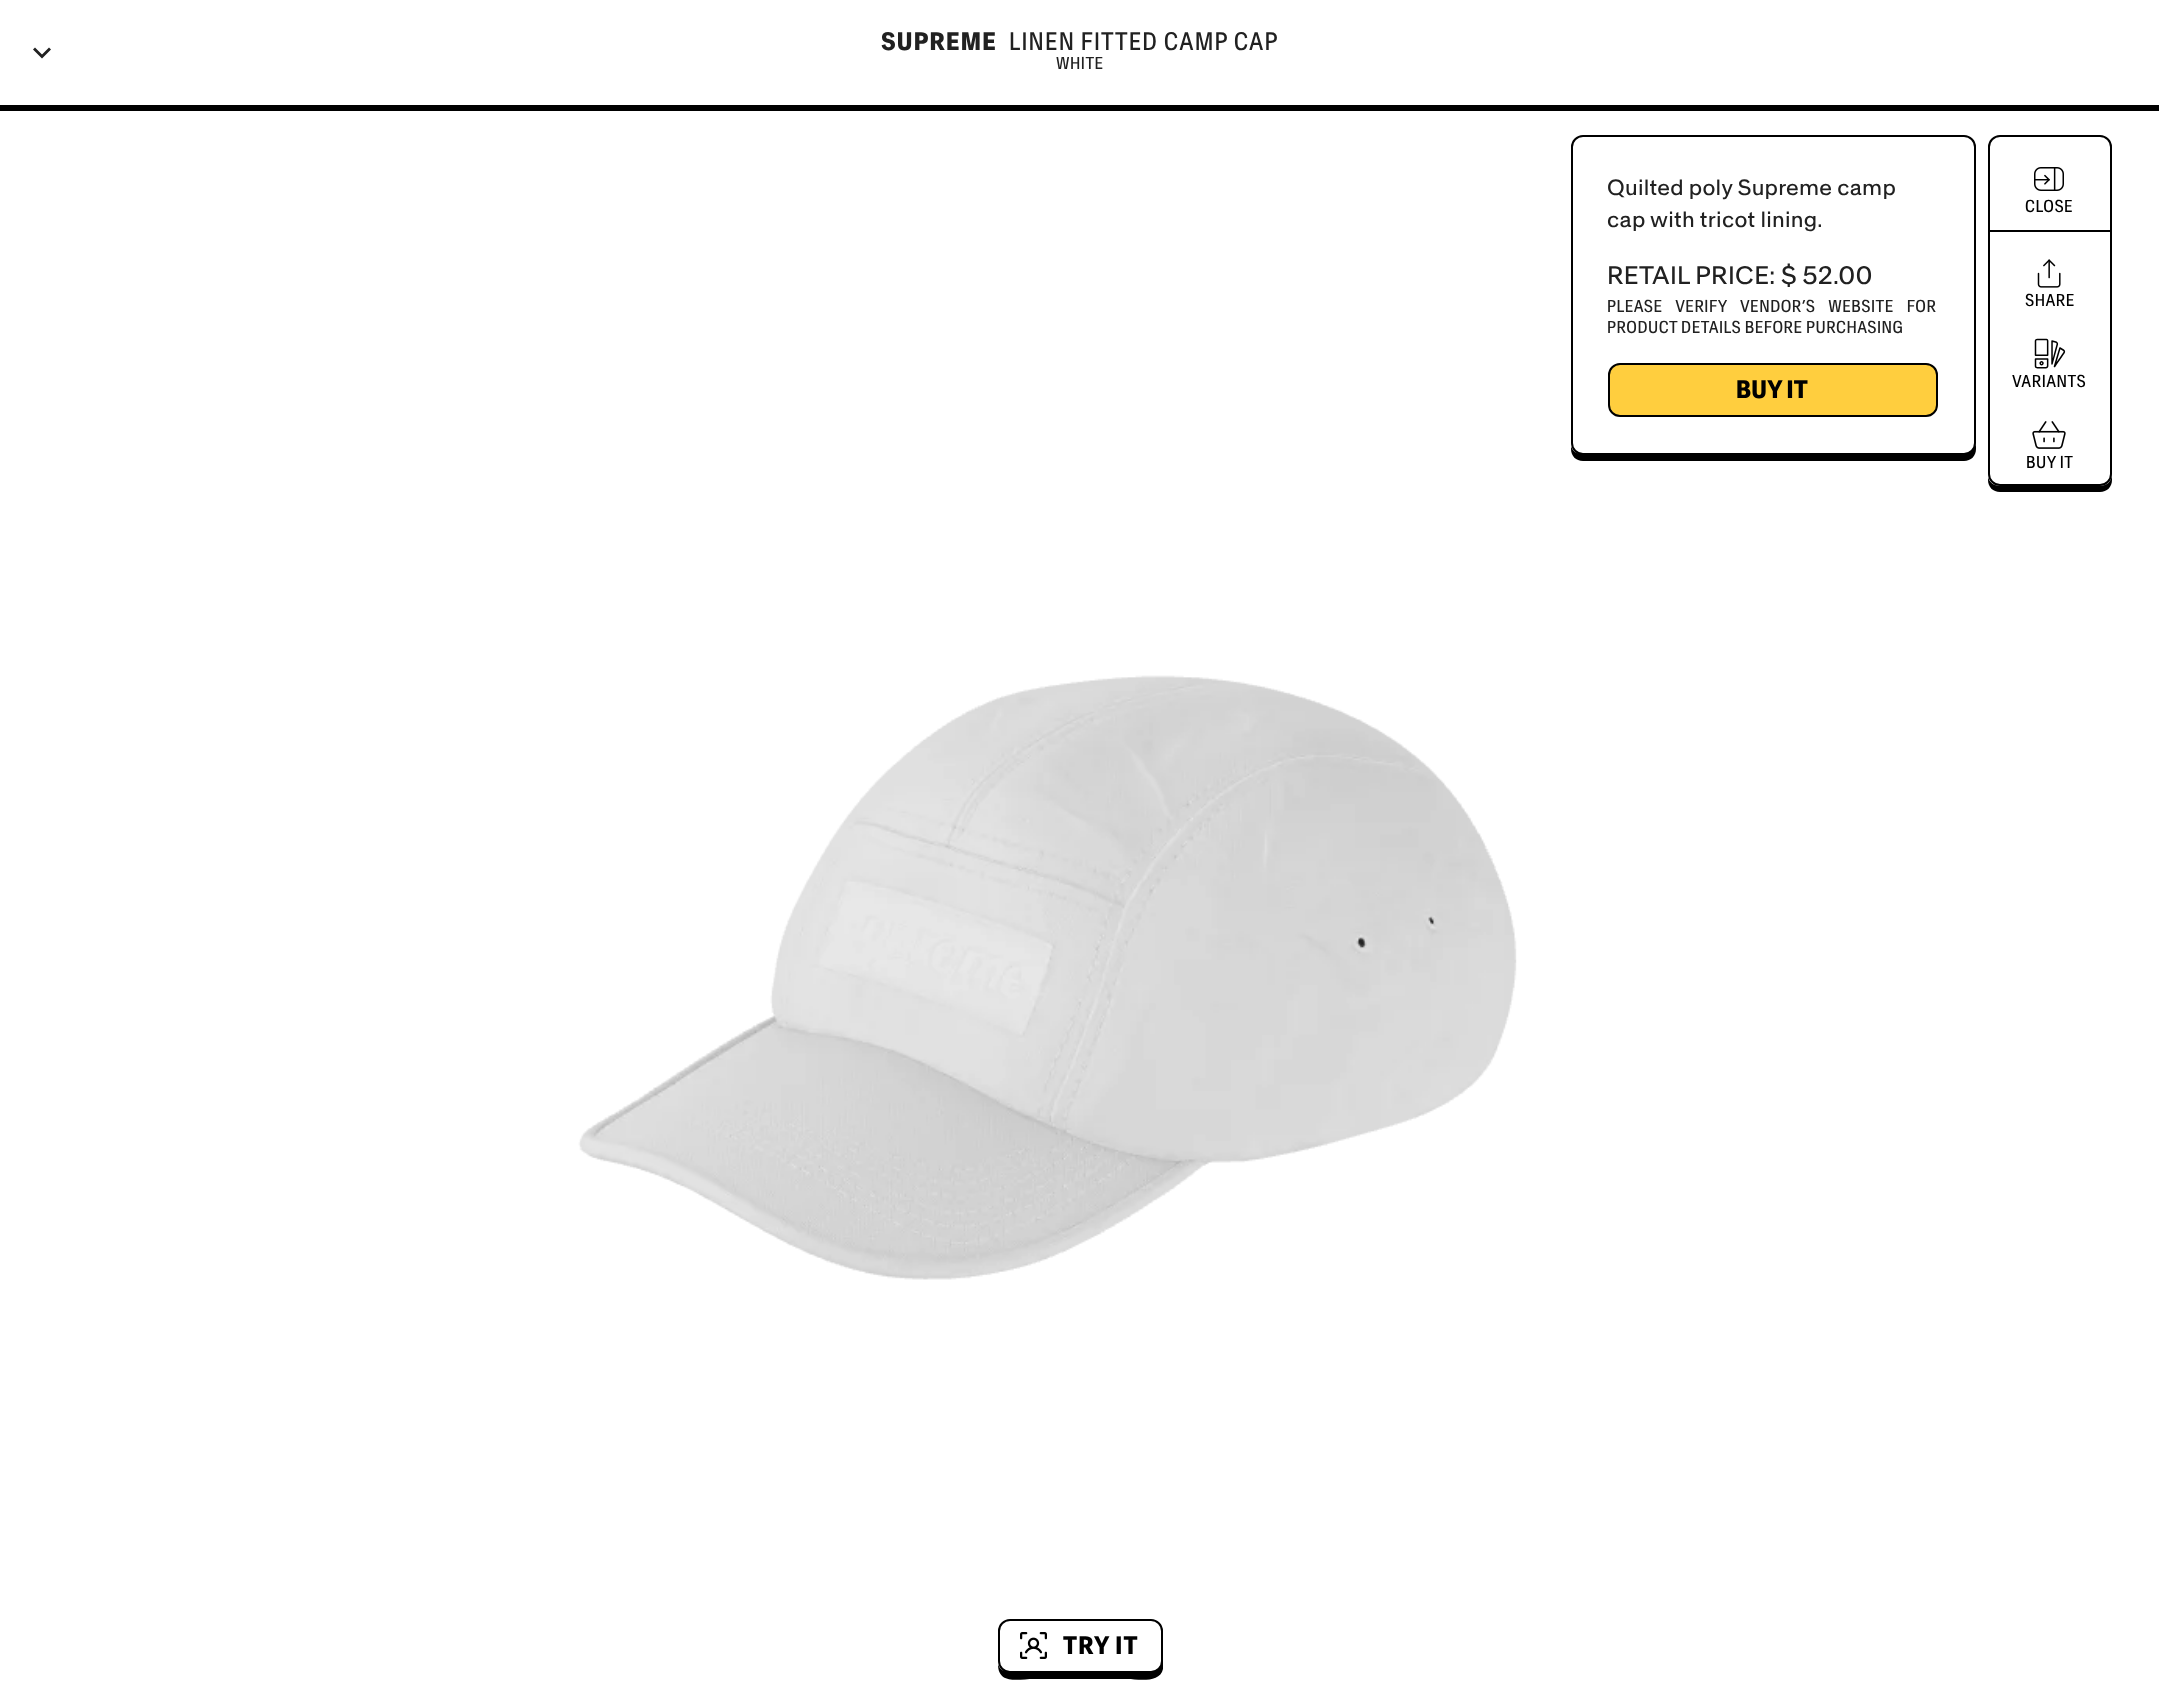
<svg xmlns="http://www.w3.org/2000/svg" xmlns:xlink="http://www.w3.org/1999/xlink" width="2159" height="1708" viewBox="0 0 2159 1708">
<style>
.cls-1{font:bold 24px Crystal;letter-spacing:1.2px;fill:#212121}
.cls-2{font:24px Crystal;letter-spacing:1.2px;fill:#212121}
.cls-3{font:16.5px Crystal;letter-spacing:0.5px;fill:#212121}
.cls-4{font:21px 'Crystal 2';letter-spacing:0.25px;fill:#212121}
.cls-5{font:24px 'Crystal 2';letter-spacing:0.25px;fill:#212121}
.cls-6{font:bold 24px Crystal;letter-spacing:0.25px;fill:#000000}
.cls-7{font:16.5px Crystal;letter-spacing:0.5px;fill:#000000}
.cls-8{font:bold 24px Crystal;letter-spacing:1.2px;fill:#000000}
</style>
<rect width="100%" height="100%" fill="#ffffff"/>
<rect fill="#000000" x="0" y="105" width="2159" height="6"/>
<path fill="#212121" d="M49 47.5L42 54.5L35 47.5L33 49.5L42 58.5L51 49.5Z"/>
<image xlink:href="image0.png" x="578" y="675" width="939" height="605"/>
<path fill="#000000" d="M1571 446V449C1571 456 1576 461 1583 461H1964C1971 461 1976 456 1976 449V153V150V442C1976 449 1970 454 1964 454H1582C1577 454 1572 451 1571 446Z"/>
<rect fill="#ffffff" stroke="#000000" stroke-width="2" x="1572" y="136" width="403" height="318" rx="11"/>
<rect fill="#ffce3e" stroke="#000000" stroke-width="2" x="1609" y="364" width="328" height="52" rx="11"/>
<path fill="#000000" d="M1988 477V480C1988 487 1993 492 2000 492H2100C2107 492 2112 487 2112 480V474C2112 481 2107 486 2100 486H2000C1994 486 1989 482 1988 477Z"/>
<rect fill="none" stroke="#000000" stroke-width="2" x="1989" y="136" width="122" height="349" rx="11"/>
<rect fill="#000000" x="1989" y="230" width="122" height="2"/>
<image xlink:href="image1.png" x="2034" y="167" width="30" height="24"/>
<image xlink:href="image2.png" x="2037" y="259" width="24" height="29"/>
<image xlink:href="image3.png" x="2034" y="338" width="32" height="31"/>
<image xlink:href="image4.png" x="2032" y="421" width="34" height="28"/>
<path fill="#000000" d="M998 1664C998 1685 1018 1679 1034 1679H1128C1136 1679 1160 1684 1163 1669V1642L1162 1634V1660C1162 1667 1157 1672 1150 1672H1010C1004 1672 999 1669 998 1664Z"/>
<rect fill="#ffffff" stroke="#000000" stroke-width="2" x="999" y="1620" width="163" height="52" rx="11"/>
<image xlink:href="image5.png" x="1020" y="1632" width="27" height="27"/>
<text class="cls-1" x="881" y="50">SUPREME</text>
<text class="cls-2" x="1009" y="50">LINEN FITTED CAMP CAP</text>
<text class="cls-3" x="1056" y="69">WHITE</text>
<text class="cls-4"><tspan x="1607" y="195">Quilted poly Supreme camp</tspan><tspan x="1607" y="227">cap with tricot lining.</tspan></text>
<text class="cls-5" x="1607" y="284">RETAIL PRICE: $ 52.00</text>
<text class="cls-3"><tspan x="1607" y="312" word-spacing="9.5">PLEASE VERIFY VENDOR’S WEBSITE FOR</tspan><tspan x="1607" y="333">PRODUCT DETAILS BEFORE PURCHASING</tspan></text>
<text class="cls-6" x="1736" y="398">BUY IT</text>
<text class="cls-7" x="2025" y="212">CLOSE</text>
<text class="cls-7" x="2025" y="306">SHARE</text>
<text class="cls-7" x="2012" y="387">VARIANTS</text>
<text class="cls-7" x="2026" y="468">BUY IT</text>
<text class="cls-8" x="1063" y="1654">TRY IT</text>
</svg>
